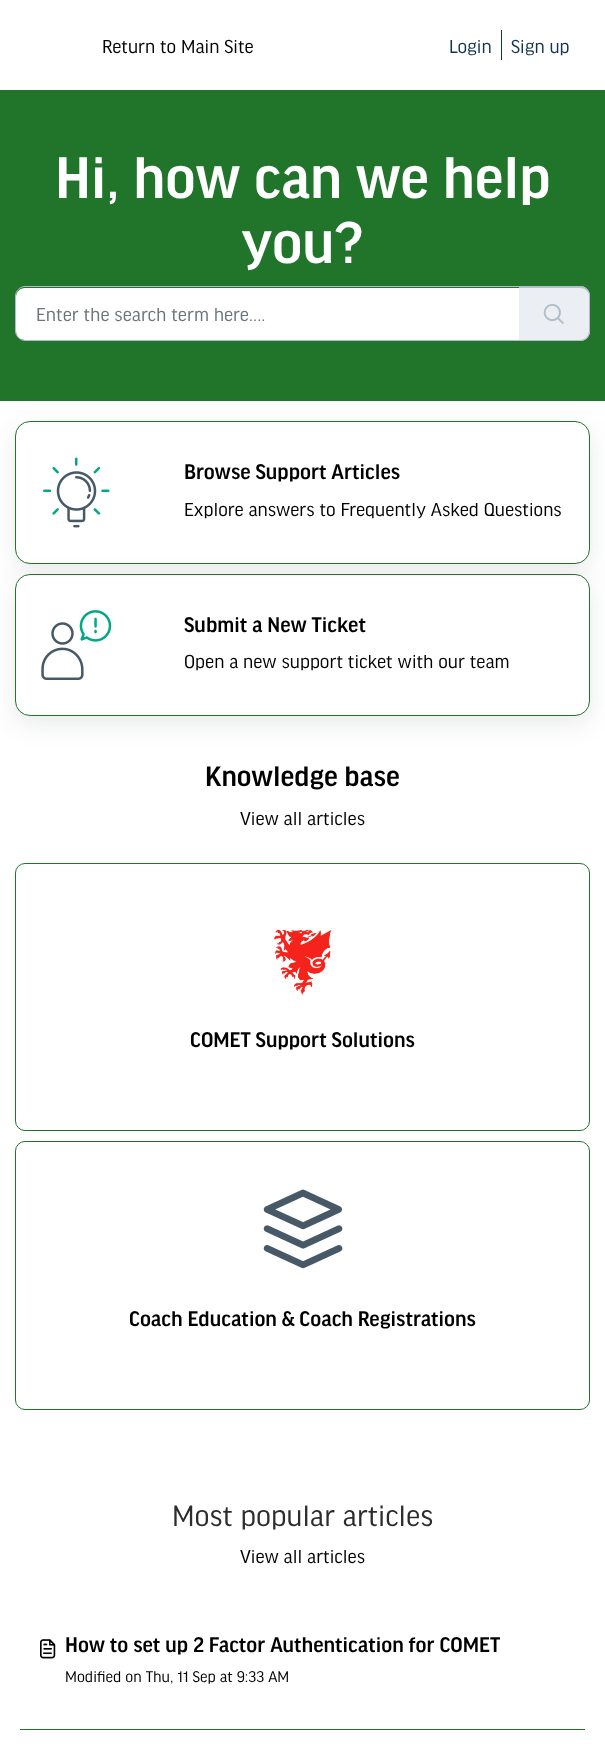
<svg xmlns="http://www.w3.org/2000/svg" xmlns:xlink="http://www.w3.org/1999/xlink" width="605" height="1750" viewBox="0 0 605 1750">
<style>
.cls-1{font:20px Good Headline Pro;fill:#000000}
.cls-2{font:20px Good Headline Pro;fill:#12344d}
.cls-3{font:500 62.5px Good Headline Pro;fill:#ffffff}
.cls-4{font:20px Good Headline Pro;fill:#6c757d}
.cls-5{font:500 22.5px Good Headline Pro;fill:#000000}
.cls-6{font:500 30px Good Headline Pro;fill:#000000}
.cls-7{font:31.25px Good Headline Pro;fill:#2c2c2c}
.cls-8{font:16.5px Good Headline Pro;fill:#000000}
</style>
<defs>
<clipPath id="clip1"><rect x="65" y="1630" width="435" height="34"/></clipPath>
</defs>
<rect width="100%" height="100%" fill="#ffffff"/>
<rect fill="#12344d" x="501" y="30" width="1" height="30"/>
<rect fill="#21752b" x="0" y="90" width="605" height="311"/>
<path fill="#ffffff" d="M25 288H519V340H25C20 340 16 336 16 331V297C16 292 20 288 25 288Z"/>
<path fill="none" stroke="#b1bdc8" d="M25 286.5H519.5V340.5H25C20 340.5 15.5 336 15.5 331V296C15.5 291 20 286.5 25 286.5Z"/>
<path fill="#ebeff3" d="M519 286H580C585.5 286 590 290.5 590 296V331C590 336.5 585.5 341 580 341H519Z"/>
<path fill="#b1bdc8" fill-rule="evenodd" d="M519 286H580C586 286 590 291 590 296V331C590 337 586 341 580 341H519ZM519 288H580C585 288 589 291 589 296V331C589 336 585 340 580 340H519Z"/>
<image xlink:href="image0.png" x="543" y="304" width="21" height="20"/>
<rect fill="#27313a" fill-opacity="0.1" filter="blur(12px)" x="15" y="429" width="575" height="142" rx="15"/>
<rect fill="#ffffff" stroke="#21752b" x="15.5" y="421.5" width="574" height="142" rx="14.5"/>
<image xlink:href="image1.png" x="43" y="457" width="67" height="71"/>
<rect fill="#27313a" fill-opacity="0.1" filter="blur(12px)" x="15" y="581" width="575" height="143" rx="15"/>
<rect fill="#ffffff" stroke="#21752b" x="15.5" y="574.5" width="574" height="141" rx="14.5"/>
<image xlink:href="image2.png" x="41" y="610" width="71" height="70"/>
<rect fill="none" stroke="#21752b" x="15.5" y="863.5" width="574" height="267" rx="9.5"/>
<image xlink:href="image3.png" x="274" y="929" width="58" height="66"/>
<rect fill="none" stroke="#21752b" x="15.5" y="1141.5" width="574" height="268" rx="9.5"/>
<image xlink:href="image4.png" x="263" y="1189" width="80" height="80"/>
<rect fill="#21752b" x="20" y="1729" width="565" height="1"/>
<image xlink:href="image5.png" x="40" y="1639" width="16" height="20"/>
<text class="cls-1" x="102" y="53">Return to Main Site</text>
<text class="cls-2" x="449" y="53">Login</text>
<text class="cls-2" x="511" y="53">Sign up</text>
<text class="cls-3" x="55" y="198">Hi, how can we help</text>
<text class="cls-3" x="241" y="263">you?</text>
<text class="cls-4" x="36" y="321">Enter the search term here....</text>
<text class="cls-5" x="184" y="479">Browse Support Articles</text>
<text class="cls-1" x="184" y="516">Explore answers to Frequently Asked Questions</text>
<text class="cls-5" x="184" y="632">Submit a New Ticket</text>
<text class="cls-1" x="184" y="668">Open a new support ticket with our team</text>
<text class="cls-6" x="205" y="786">Knowledge base</text>
<text class="cls-1" x="240" y="825">View all articles</text>
<text class="cls-5" x="190" y="1047">COMET Support Solutions</text>
<text class="cls-5" x="129" y="1326">Coach Education &amp; Coach Registrations</text>
<text class="cls-7" x="172" y="1526">Most popular articles</text>
<text class="cls-1" x="240" y="1563">View all articles</text>
<g clip-path="url(#clip1)">
<text class="cls-5" x="65" y="1652">How to set up 2 Factor Authentication for COMET</text>
</g>
<text class="cls-8" x="65" y="1682">Modified on Thu, 11 Sep at 9:33 AM</text>
</svg>
